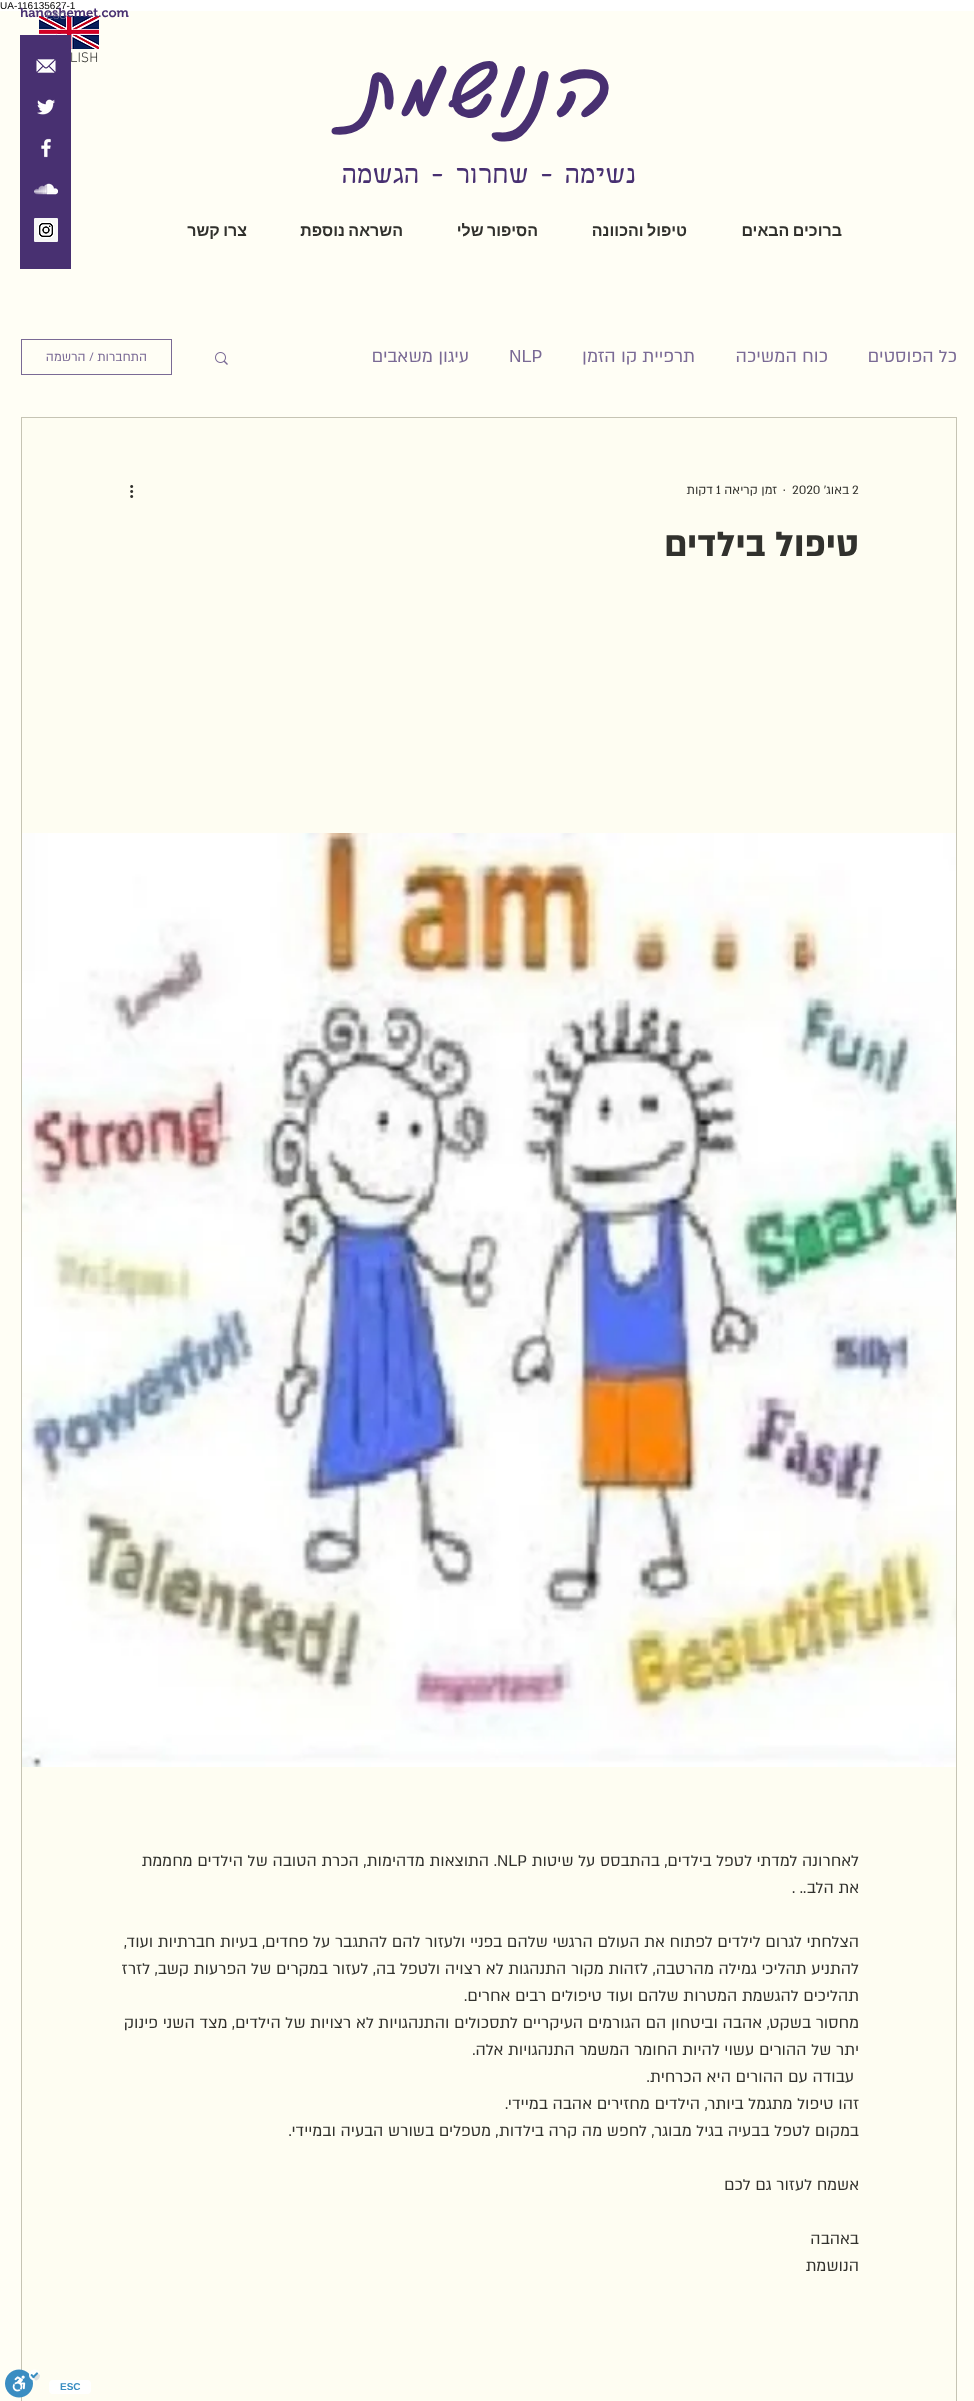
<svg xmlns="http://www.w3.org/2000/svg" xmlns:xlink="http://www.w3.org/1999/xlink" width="974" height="2401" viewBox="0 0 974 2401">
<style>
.cls-1{font:10px Liberation Sans;fill:#000000}
.cls-2{font:600 13px 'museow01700';fill:#483071}
.cls-3{font:300 14px 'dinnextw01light';fill:#31312d}
.cls-4{font:80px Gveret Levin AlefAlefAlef;letter-spacing:8px;direction:rtl;fill:#483071}
.cls-5{font:500 30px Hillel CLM;direction:rtl;fill:#483071}
.cls-6{font:bold 16px Liberation Sans;direction:rtl;fill:#31312d}
.cls-7{font:20px 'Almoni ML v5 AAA';direction:rtl;fill:#7a6a95}
.cls-8{font:20px 'Almoni ML v5 AAA';fill:#7a6a95}
.cls-9{font:14px 'Almoni ML v5 AAA';direction:rtl;fill:#7a6a95}
.cls-10{font:14px 'Almoni ML v5 AAA';fill:#31312d}
.cls-11{font:14px 'Almoni ML v5 AAA';direction:rtl;fill:#31312d}
.cls-12{font:bold 40px 'Almoni ML v5 AAA';direction:rtl;fill:#31312d}
.cls-13{font:18px 'Almoni ML v5 AAA';direction:rtl;fill:#31312d}
.cls-14{font:18px 'Almoni ML v5 AAA';fill:#31312d}
.cls-15{font:10px Liberation Sans;fill:#706f95}
.cls-16{font:bold 10px Liberation Sans;fill:#3a8dc2}
</style>
<rect width="100%" height="100%" fill="#ffffff"/>
<rect fill="#fffef5" x="0" y="11" width="974" height="2390"/>
<image xlink:href="image5.png" x="39" y="16" width="60" height="33"/>
<rect fill="#483071" x="20" y="35" width="51" height="234"/>
<image xlink:href="image0.png" x="36" y="59" width="20" height="14"/>
<image xlink:href="image1.png" x="37" y="99" width="18" height="16"/>
<image xlink:href="image2.png" x="41" y="138" width="10" height="20"/>
<image xlink:href="image3.png" x="34" y="183" width="24" height="12"/>
<image xlink:href="image4.png" x="34" y="218" width="24" height="24"/>
<image xlink:href="image6.png" x="215" y="352" width="13" height="13"/>
<rect fill="none" stroke="#7a6a95" x="21.5" y="339.5" width="150" height="35"/>
<rect fill="#fefdf2" stroke="#c6c4b4" x="21.5" y="417.5" width="935" height="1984"/>
<image xlink:href="image7.png" x="130" y="485" width="4" height="13"/>
<image xlink:href="image8.png" x="22" y="833" width="934" height="934"/>
<rect fill="#ffffff" x="49" y="2380" width="42" height="14" rx="4"/>
<image xlink:href="image9.png" x="5" y="2369" width="35" height="29"/>
<text class="cls-1" x="0" y="9">UA-116135627-1</text>
<text class="cls-2" x="20" y="17">hanoshemet.com</text>
<text class="cls-3" x="70" y="62">LISH</text>
<text class="cls-4" x="617" y="116">הנושמת</text>
<text class="cls-5" x="636" y="183">נשימה - שחרור - הגשמה</text>
<text class="cls-6" x="842" y="236" word-spacing="-1">ברוכים הבאים</text>
<text class="cls-6" x="687" y="236" word-spacing="-1">טיפול והכוונה</text>
<text class="cls-6" x="538" y="236" word-spacing="-1">הסיפור שלי</text>
<text class="cls-6" x="403" y="236" word-spacing="-1">השראה נוספת</text>
<text class="cls-6" x="247" y="236" word-spacing="-1">צרו קשר</text>
<text class="cls-7" x="957" y="362">כל הפוסטים</text>
<text class="cls-7" x="828" y="362">כוח המשיכה</text>
<text class="cls-7" x="695" y="362">תרפיית קו הזמן</text>
<text class="cls-8" x="509" y="362">NLP</text>
<text class="cls-7" x="469" y="362">עיגון משאבים</text>
<text class="cls-9" x="147" y="361">התחברות / הרשמה</text>
<text class="cls-10" x="852" y="494">2</text>
<text class="cls-11" x="849" y="494">באוג׳</text>
<text class="cls-10" x="792" y="494">2020</text>
<text class="cls-10" x="783" y="494">·</text>
<text class="cls-11" x="777" y="494">זמן קריאה</text>
<text class="cls-10" x="716" y="494">1</text>
<text class="cls-11" x="713" y="494">דקות</text>
<text class="cls-12" x="859" y="556">טיפול בילדים</text>
<text class="cls-13" x="859" y="1866">לאחרונה למדתי לטפל בילדים, בהתבסס על שיטות</text>
<text class="cls-14" x="497" y="1866">NLP</text>
<text class="cls-13" x="497" y="1866">. התוצאות מדהימות, הכרת הטובה של הילדים מחממת</text>
<text class="cls-13" x="859" y="1893">את הלב.. .</text>
<text class="cls-13"><tspan x="859" y="1947">הצלחתי לגרום לילדים לפתוח את העולם הרגשי שלהם בפניי ולעזור להם להתגבר על פחדים, בעיות חברתיות ועוד,</tspan><tspan x="859" y="1974">להתניע תהליכי גמילה מהרטבה, לזהות מקור התנהגות לא רצויה ולטפל בה, לעזור במקרים של הפרעות קשב, לזרז</tspan><tspan x="859" y="2001">תהליכים להגשמת המטרות שלהם ועוד טיפולים רבים אחרים.</tspan><tspan x="859" y="2028">מחסור בשקט, אהבה וביטחון הם הגורמים העיקריים לתסכולים והתנהגויות לא רצויות של הילדים, מצד השני פינוק</tspan><tspan x="859" y="2055">יתר של ההורים עשוי להיות החומר המשמר התנהגויות אלה.</tspan></text>
<text class="cls-13" x="854" y="2082">עבודה עם ההורים היא הכרחית.</text>
<text class="cls-13"><tspan x="859" y="2109">זהו טיפול מתגמל ביותר, הילדים מחזירים אהבה במיידי.</tspan><tspan x="859" y="2136">במקום לטפל בבעיה בגיל מבוגר, לחפש מה קרה בילדות, מטפלים בשורש הבעיה ובמיידי.</tspan></text>
<text class="cls-13" x="859" y="2190">אשמח לעזור גם לכם</text>
<text class="cls-13"><tspan x="859" y="2244">באהבה</tspan><tspan x="859" y="2271">הנושמת</tspan></text>
<text class="cls-15" x="46" y="19">ESC</text>
<text class="cls-16" x="60" y="2390">ESC</text>
</svg>
